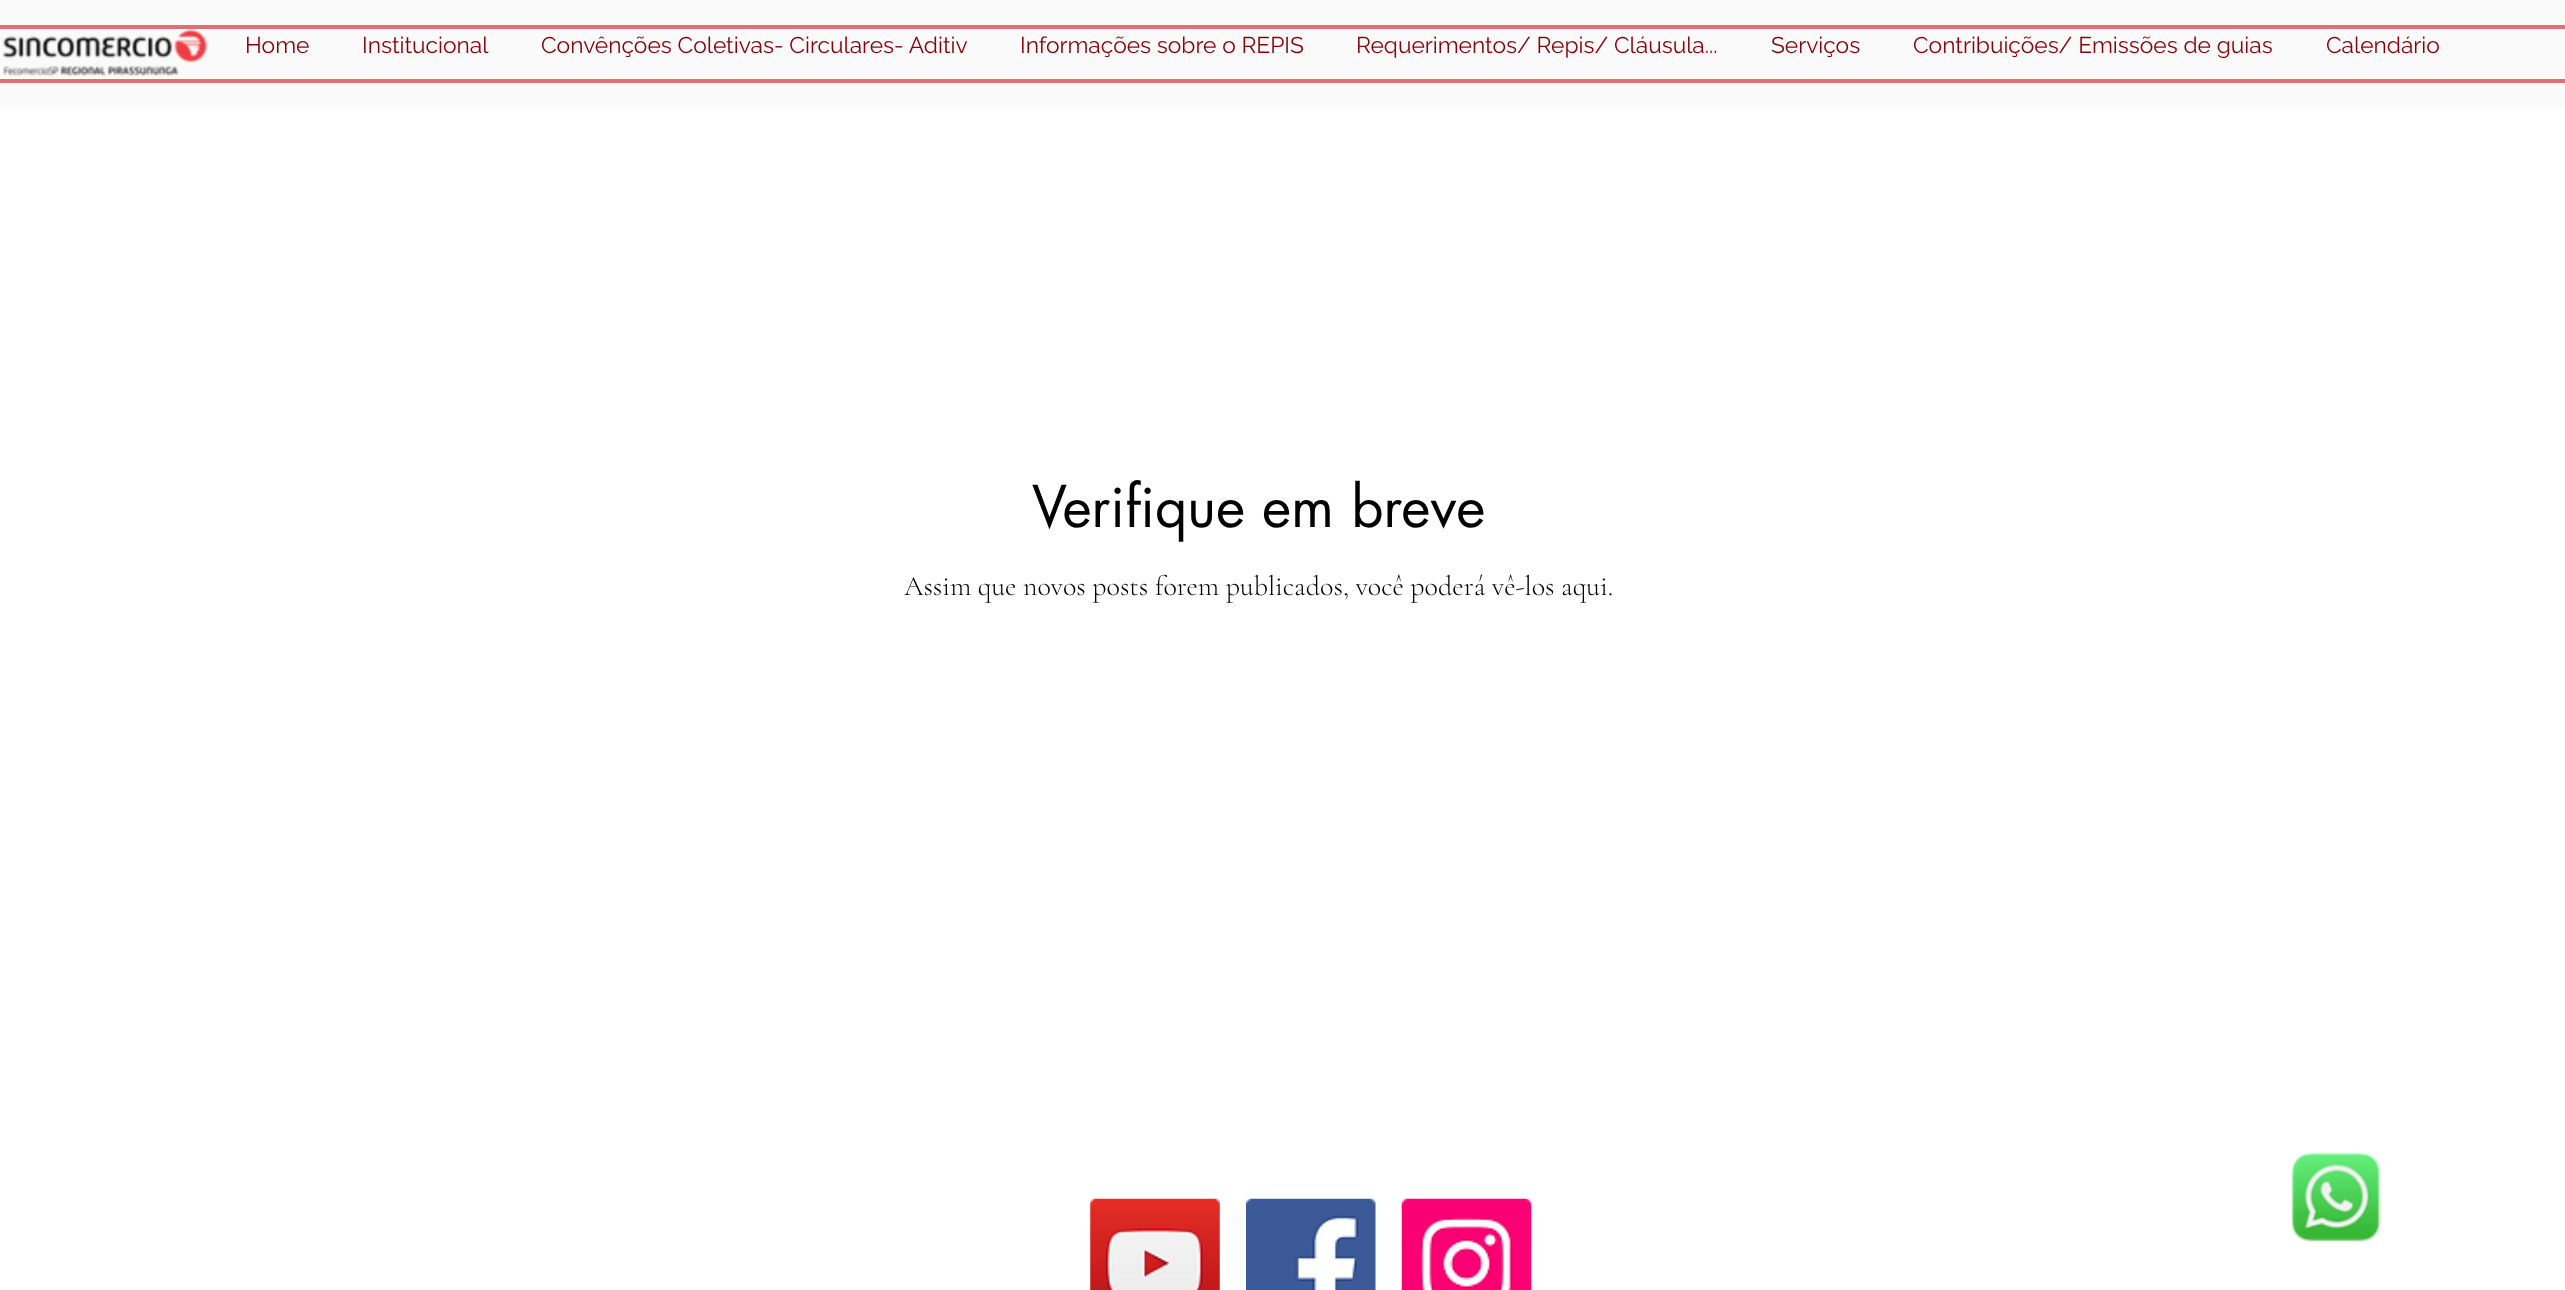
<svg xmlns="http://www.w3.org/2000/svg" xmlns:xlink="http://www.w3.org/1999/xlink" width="2565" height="1290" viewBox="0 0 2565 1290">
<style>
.cls-1{font:22.75px Raleway;fill:#8b0007}
.cls-2{font:56px futura;fill:#000000}
.cls-3{font:300 28px Cormorant Garamond;fill:#000000}
</style>
<rect width="100%" height="100%" fill="#ffffff"/>
<rect fill="#fafafa" x="0" y="0" width="2565" height="107"/>
<rect fill="#e07076" x="0" y="25" width="2565" height="4"/>
<rect fill="#e07076" x="0" y="79" width="2565" height="4"/>
<image xlink:href="image0.png" x="3" y="29" width="205" height="47"/>
<image xlink:href="image1.png" x="1090" y="1198" width="130" height="92"/>
<image xlink:href="image2.png" x="1246" y="1198" width="130" height="92"/>
<image xlink:href="image3.png" x="1401" y="1198" width="131" height="92"/>
<image xlink:href="image4.png" x="2291" y="1152" width="90" height="90"/>
<text class="cls-1" x="245" y="53">Home</text>
<text class="cls-1" x="362" y="53">Institucional</text>
<text class="cls-1" x="541" y="53">Convênções Coletivas- Circulares- Aditiv</text>
<text class="cls-1" x="1020" y="53">Informações sobre o REPIS</text>
<text class="cls-1" x="1356" y="53">Requerimentos/ Repis/ Cláusula...</text>
<text class="cls-1" x="1771" y="53">Serviços</text>
<text class="cls-1" x="1913" y="53">Contribuições/ Emissões de guias</text>
<text class="cls-1" x="2326" y="53">Calendário</text>
<text class="cls-2" x="1032" y="527">Verifique em breve</text>
<text class="cls-3" x="904" y="595">Assim que novos posts forem publicados, você poderá vê-los aqui.</text>
</svg>
